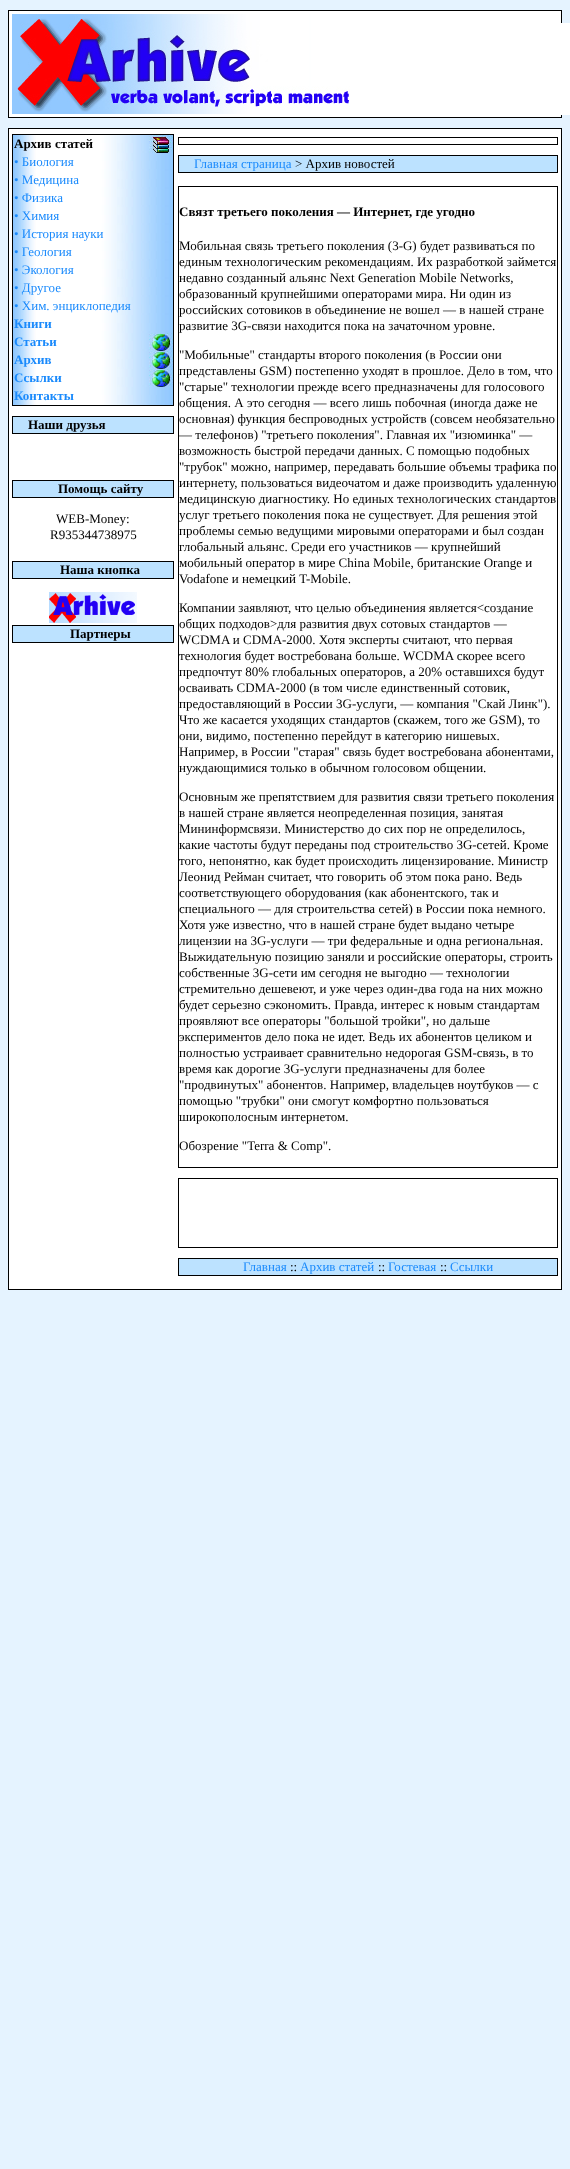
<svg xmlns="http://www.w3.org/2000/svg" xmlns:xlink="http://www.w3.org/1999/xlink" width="570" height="2169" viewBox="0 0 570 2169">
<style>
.cls-1{font:bold 13px Liberation Serif;fill:#000000}
.cls-2{font:13px Liberation Serif;fill:#1a8afc}
.cls-3{font:bold 13px Liberation Serif;fill:#1a8afc}
.cls-4{font:13px Liberation Serif;fill:#000000}
</style>
<rect width="100%" height="100%" fill="#e5f3ff"/>
<rect fill="#ffffff" stroke="#000000" x="8.5" y="10.5" width="553" height="107"/>
<image xlink:href="image0.png" x="12" y="14" width="338" height="100"/>
<rect fill="#ffffff" x="561" y="23" width="9" height="92"/>
<rect fill="#ffffff" stroke="#000000" x="8.5" y="128.5" width="553" height="1161"/>
<rect fill="none" stroke="#000000" x="12.5" y="134.5" width="161" height="271"/>
<image xlink:href="image1.png" x="13" y="135" width="160" height="18"/>
<image xlink:href="image2.png" x="13" y="153" width="160" height="18"/>
<image xlink:href="image2.png" x="13" y="171" width="160" height="18"/>
<image xlink:href="image2.png" x="13" y="189" width="160" height="18"/>
<image xlink:href="image2.png" x="13" y="207" width="160" height="18"/>
<image xlink:href="image2.png" x="13" y="225" width="160" height="18"/>
<image xlink:href="image2.png" x="13" y="243" width="160" height="18"/>
<image xlink:href="image2.png" x="13" y="261" width="160" height="18"/>
<image xlink:href="image2.png" x="13" y="279" width="160" height="18"/>
<image xlink:href="image2.png" x="13" y="297" width="160" height="18"/>
<image xlink:href="image2.png" x="13" y="315" width="160" height="18"/>
<image xlink:href="image3.png" x="13" y="333" width="160" height="18"/>
<image xlink:href="image3.png" x="13" y="351" width="160" height="18"/>
<image xlink:href="image3.png" x="13" y="369" width="160" height="18"/>
<image xlink:href="image2.png" x="13" y="387" width="160" height="18"/>
<rect fill="#bce2ff" stroke="#000000" x="12.5" y="416.5" width="161" height="17"/>
<rect fill="#bce2ff" stroke="#000000" x="12.5" y="480.5" width="161" height="17"/>
<rect fill="#bce2ff" stroke="#000000" x="12.5" y="561.5" width="161" height="17"/>
<image xlink:href="image4.png" x="49" y="592" width="88" height="31"/>
<rect fill="#bce2ff" stroke="#000000" x="12.5" y="625.5" width="161" height="17"/>
<rect fill="none" stroke="#000000" x="178.5" y="137.5" width="379" height="7"/>
<rect fill="#bce2ff" stroke="#000000" x="178.5" y="155.5" width="379" height="17"/>
<rect fill="none" stroke="#000000" x="178.5" y="186.5" width="379" height="981"/>
<rect fill="none" stroke="#000000" x="178.5" y="1178.5" width="379" height="69"/>
<rect fill="#bce2ff" stroke="#000000" x="178.5" y="1258.5" width="379" height="17"/>
<text class="cls-1" x="14" y="148">Архив статей</text>
<text class="cls-2"><tspan x="14" y="166">• Биология</tspan><tspan x="14" y="184">• Медицина</tspan><tspan x="14" y="202">• Физика</tspan><tspan x="14" y="220">• Химия</tspan><tspan x="14" y="238">• История науки</tspan><tspan x="14" y="256">• Геология</tspan><tspan x="14" y="274">• Экология</tspan><tspan x="14" y="292">• Другое</tspan><tspan x="14" y="310">• Хим. энциклопедия</tspan></text>
<text class="cls-3"><tspan x="14" y="328">Книги</tspan><tspan x="14" y="346">Статьи</tspan><tspan x="14" y="364">Архив</tspan><tspan x="14" y="382">Ссылки</tspan><tspan x="14" y="400">Контакты</tspan></text>
<text class="cls-1" x="28" y="429">Наши друзья</text>
<text class="cls-1" x="58" y="493">Помощь сайту</text>
<text class="cls-4" x="56" y="523">WEB-Money:</text>
<text class="cls-4" x="50" y="539">R935344738975</text>
<text class="cls-1" x="60" y="574">Наша кнопка</text>
<text class="cls-1" x="70" y="638">Партнеры</text>
<text class="cls-2" x="194" y="168">Главная страница</text>
<text class="cls-4" x="295" y="168">&gt; Архив новостей</text>
<text class="cls-1" x="179" y="216">Связт третьего поколения — Интернет, где угодно</text>
<text class="cls-4"><tspan x="179" y="250">Мобильная связь третьего поколения (3-G) будет развиваться по</tspan><tspan x="179" y="266">единым технологическим рекомендациям. Их разработкой займется</tspan><tspan x="179" y="282">недавно созданный альянс Next Generation Mobile Networks,</tspan><tspan x="179" y="298">образованный крупнейшими операторами мира. Ни один из</tspan><tspan x="179" y="314">российских сотовиков в объединение не вошел — в нашей стране</tspan><tspan x="179" y="330">развитие 3G-связи находится пока на зачаточном уровне.</tspan></text>
<text class="cls-4"><tspan x="179" y="359">"Мобильные" стандарты второго поколения (в России они</tspan><tspan x="179" y="375">представлены GSM) постепенно уходят в прошлое. Дело в том, что</tspan><tspan x="179" y="391">"старые" технологии прежде всего предназначены для голосового</tspan><tspan x="179" y="407">общения. А это сегодня — всего лишь побочная (иногда даже не</tspan><tspan x="179" y="423">основная) функция беспроводных устройств (совсем необязательно</tspan><tspan x="179" y="439">— телефонов) "третьего поколения". Главная их "изюминка" —</tspan><tspan x="179" y="455">возможность быстрой передачи данных. С помощью подобных</tspan><tspan x="179" y="471">"трубок" можно, например, передавать большие объемы трафика по</tspan><tspan x="179" y="487">интернету, пользоваться видеочатом и даже производить удаленную</tspan><tspan x="179" y="503">медицинскую диагностику. Но единых технологических стандартов</tspan><tspan x="179" y="519">услуг третьего поколения пока не существует. Для решения этой</tspan><tspan x="179" y="535">проблемы семью ведущими мировыми операторами и был создан</tspan><tspan x="179" y="551">глобальный альянс. Среди его участников — крупнейший</tspan><tspan x="179" y="567">мобильный оператор в мире China Mobile, британские Orange и</tspan><tspan x="179" y="583">Vodafone и немецкий T-Mobile.</tspan></text>
<text class="cls-4"><tspan x="179" y="612">Компании заявляют, что целью объединения является&lt;создание</tspan><tspan x="179" y="628">общих подходов&gt;для развития двух сотовых стандартов —</tspan><tspan x="179" y="644">WCDMA и CDMA-2000. Хотя эксперты считают, что первая</tspan><tspan x="179" y="660">технология будет востребована больше. WCDMA скорее всего</tspan><tspan x="179" y="676">предпочтут 80% глобальных операторов, а 20% оставшихся будут</tspan><tspan x="179" y="692">осваивать CDMA-2000 (в том числе единственный сотовик,</tspan><tspan x="179" y="708">предоставляющий в России 3G-услуги, — компания "Скай Линк").</tspan><tspan x="179" y="724">Что же касается уходящих стандартов (скажем, того же GSM), то</tspan><tspan x="179" y="740">они, видимо, постепенно перейдут в категорию нишевых.</tspan><tspan x="179" y="756">Например, в России "старая" связь будет востребована абонентами,</tspan><tspan x="179" y="772">нуждающимися только в обычном голосовом общении.</tspan></text>
<text class="cls-4"><tspan x="179" y="801">Основным же препятствием для развития связи третьего поколения</tspan><tspan x="179" y="817">в нашей стране является неопределенная позиция, занятая</tspan><tspan x="179" y="833">Мининформсвязи. Министерство до сих пор не определилось,</tspan><tspan x="179" y="849">какие частоты будут переданы под строительство 3G-сетей. Кроме</tspan><tspan x="179" y="865">того, непонятно, как будет происходить лицензирование. Министр</tspan><tspan x="179" y="881">Леонид Рейман считает, что говорить об этом пока рано. Ведь</tspan><tspan x="179" y="897">соответствующего оборудования (как абонентского, так и</tspan><tspan x="179" y="913">специального — для строительства сетей) в России пока немного.</tspan><tspan x="179" y="929">Хотя уже известно, что в нашей стране будет выдано четыре</tspan><tspan x="179" y="945">лицензии на 3G-услуги — три федеральные и одна региональная.</tspan><tspan x="179" y="961">Выжидательную позицию заняли и российские операторы, строить</tspan><tspan x="179" y="977">собственные 3G-сети им сегодня не выгодно — технологии</tspan><tspan x="179" y="993">стремительно дешевеют, и уже через один-два года на них можно</tspan><tspan x="179" y="1009">будет серьезно сэкономить. Правда, интерес к новым стандартам</tspan><tspan x="179" y="1025">проявляют все операторы "большой тройки", но дальше</tspan><tspan x="179" y="1041">экспериментов дело пока не идет. Ведь их абонентов целиком и</tspan><tspan x="179" y="1057">полностью устраивает сравнительно недорогая GSM-связь, в то</tspan><tspan x="179" y="1073">время как дорогие 3G-услуги предназначены для более</tspan><tspan x="179" y="1089">"продвинутых" абонентов. Например, владельцев ноутбуков — с</tspan><tspan x="179" y="1105">помощью "трубки" они смогут комфортно пользоваться</tspan><tspan x="179" y="1121">широкополосным интернетом.</tspan></text>
<text class="cls-4" x="179" y="1150">Обозрение "Terra &amp; Comp".</text>
<text class="cls-2" x="243" y="1271">Главная</text>
<text class="cls-4" x="290" y="1271">::</text>
<text class="cls-2" x="300" y="1271">Архив статей</text>
<text class="cls-4" x="378" y="1271">::</text>
<text class="cls-2" x="388" y="1271">Гостевая</text>
<text class="cls-4" x="440" y="1271">::</text>
<text class="cls-2" x="450" y="1271">Ссылки</text>
</svg>
